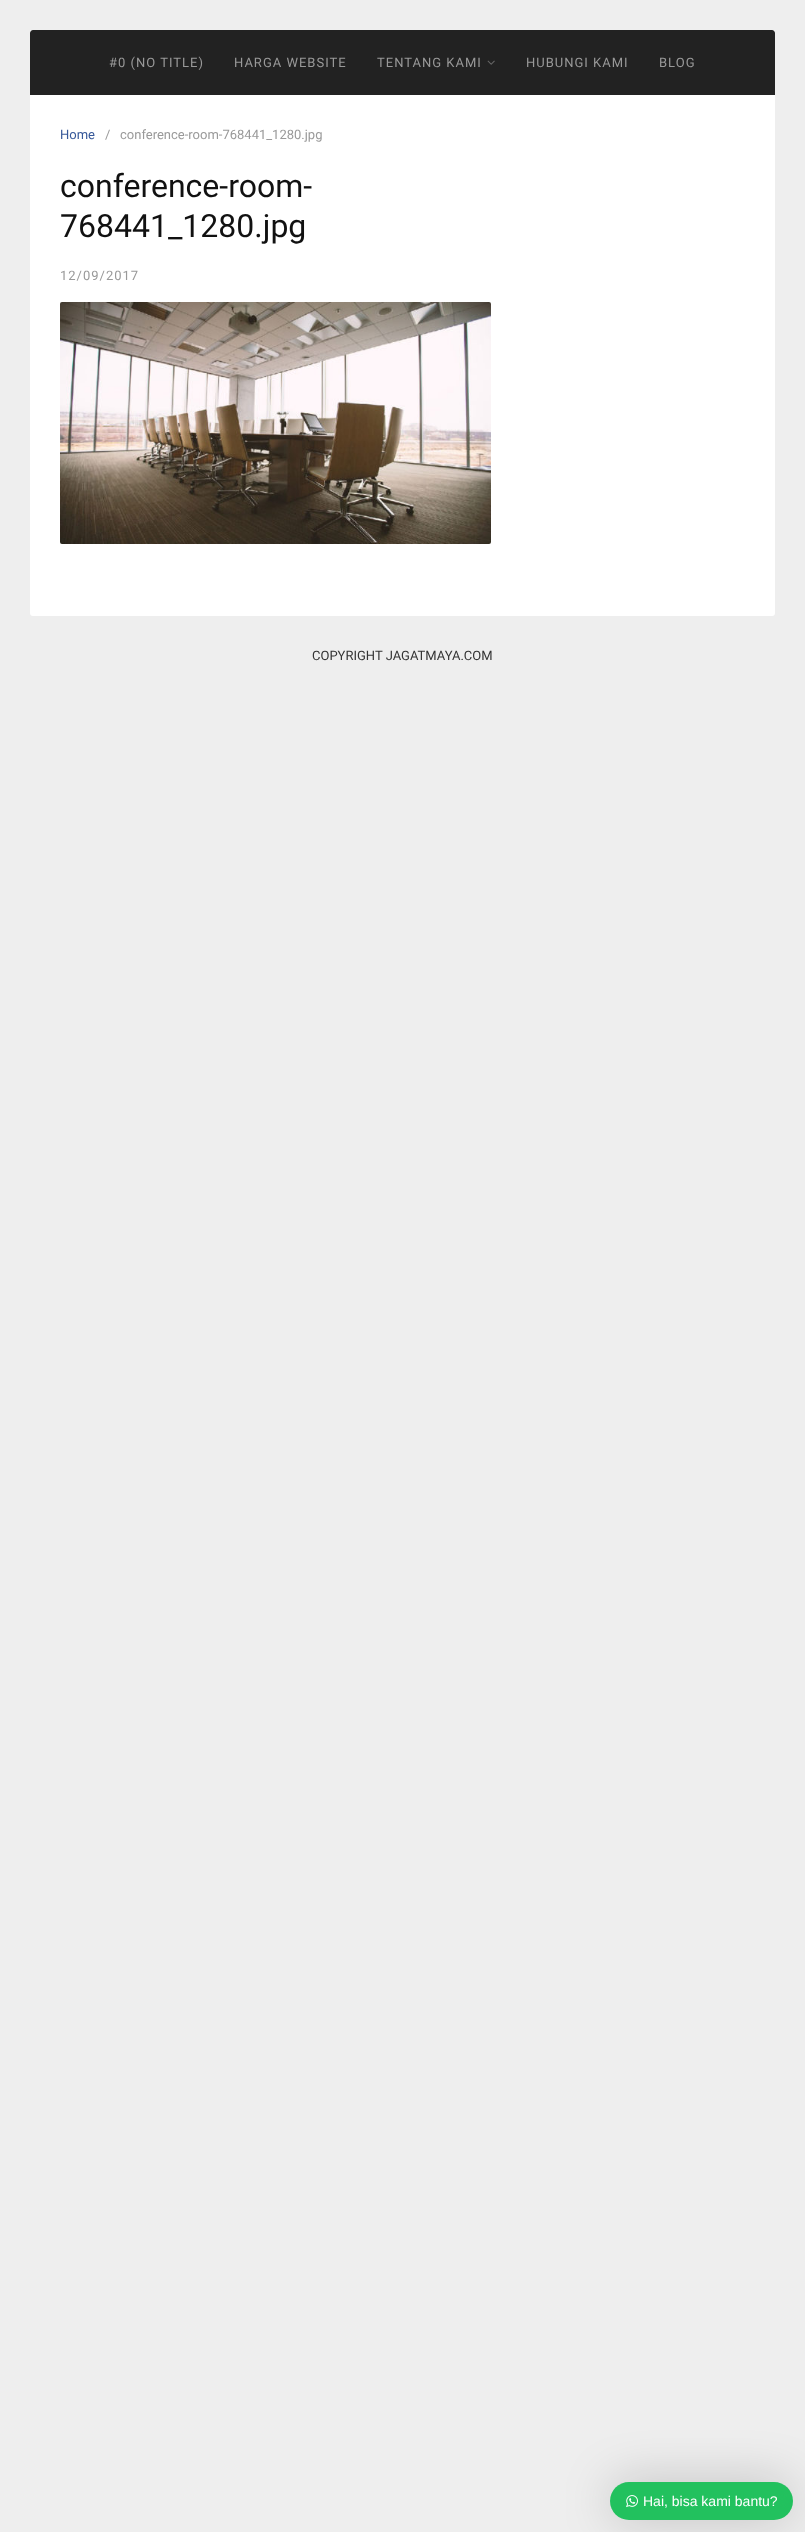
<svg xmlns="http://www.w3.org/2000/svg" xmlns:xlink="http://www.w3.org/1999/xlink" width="805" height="2532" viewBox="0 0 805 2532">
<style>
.cls-1{font:13px Roboto;letter-spacing:1px;fill:#999999}
.cls-2{font:13px Roboto;fill:#365899}
.cls-3{font:13px Roboto;fill:#999999}
.cls-4{font:32px Roboto;fill:#111111}
.cls-5{font:13px Roboto;fill:#333333}
.cls-6{font:14px Liberation Sans;fill:#ffffff}
</style>
<rect width="100%" height="100%" fill="#eeeeee"/>
<rect fill="#ffffff" x="30" y="30" width="745" height="586" rx="3"/>
<path fill="#222222" d="M33 30H772C773.5 30 775 31.5 775 33V95H30V33C30 31.5 31.5 30 33 30Z"/>
<image xlink:href="image0.png" x="487" y="60" width="8" height="5"/>
<image xlink:href="image1.png" x="60" y="302" width="431" height="242"/>
<rect fill="#000000" fill-opacity="0.2" filter="blur(25px)" x="610" y="2482" width="183" height="38" rx="19"/>
<rect fill="#22c15e" x="610" y="2482" width="183" height="38" rx="19"/>
<image xlink:href="image2.png" x="626" y="2495" width="12" height="13"/>
<text class="cls-1" x="109" y="67">#0 (NO TITLE)</text>
<text class="cls-1" x="234" y="67">HARGA WEBSITE</text>
<text class="cls-1" x="377" y="67">TENTANG KAMI</text>
<text class="cls-1" x="526" y="67">HUBUNGI KAMI</text>
<text class="cls-1" x="659" y="67">BLOG</text>
<text class="cls-2" x="60" y="139">Home</text>
<text class="cls-3" x="105" y="139">/</text>
<text class="cls-3" x="120" y="139">conference-room-768441_1280.jpg</text>
<text class="cls-4"><tspan x="60" y="197">conference-room-</tspan><tspan x="60" y="237">768441_1280.jpg</tspan></text>
<text class="cls-1" x="60" y="280">12/09/2017</text>
<text class="cls-5" x="312" y="660">COPYRIGHT JAGATMAYA.COM</text>
<text class="cls-6" x="643" y="2506">Hai, bisa kami bantu?</text>
</svg>
